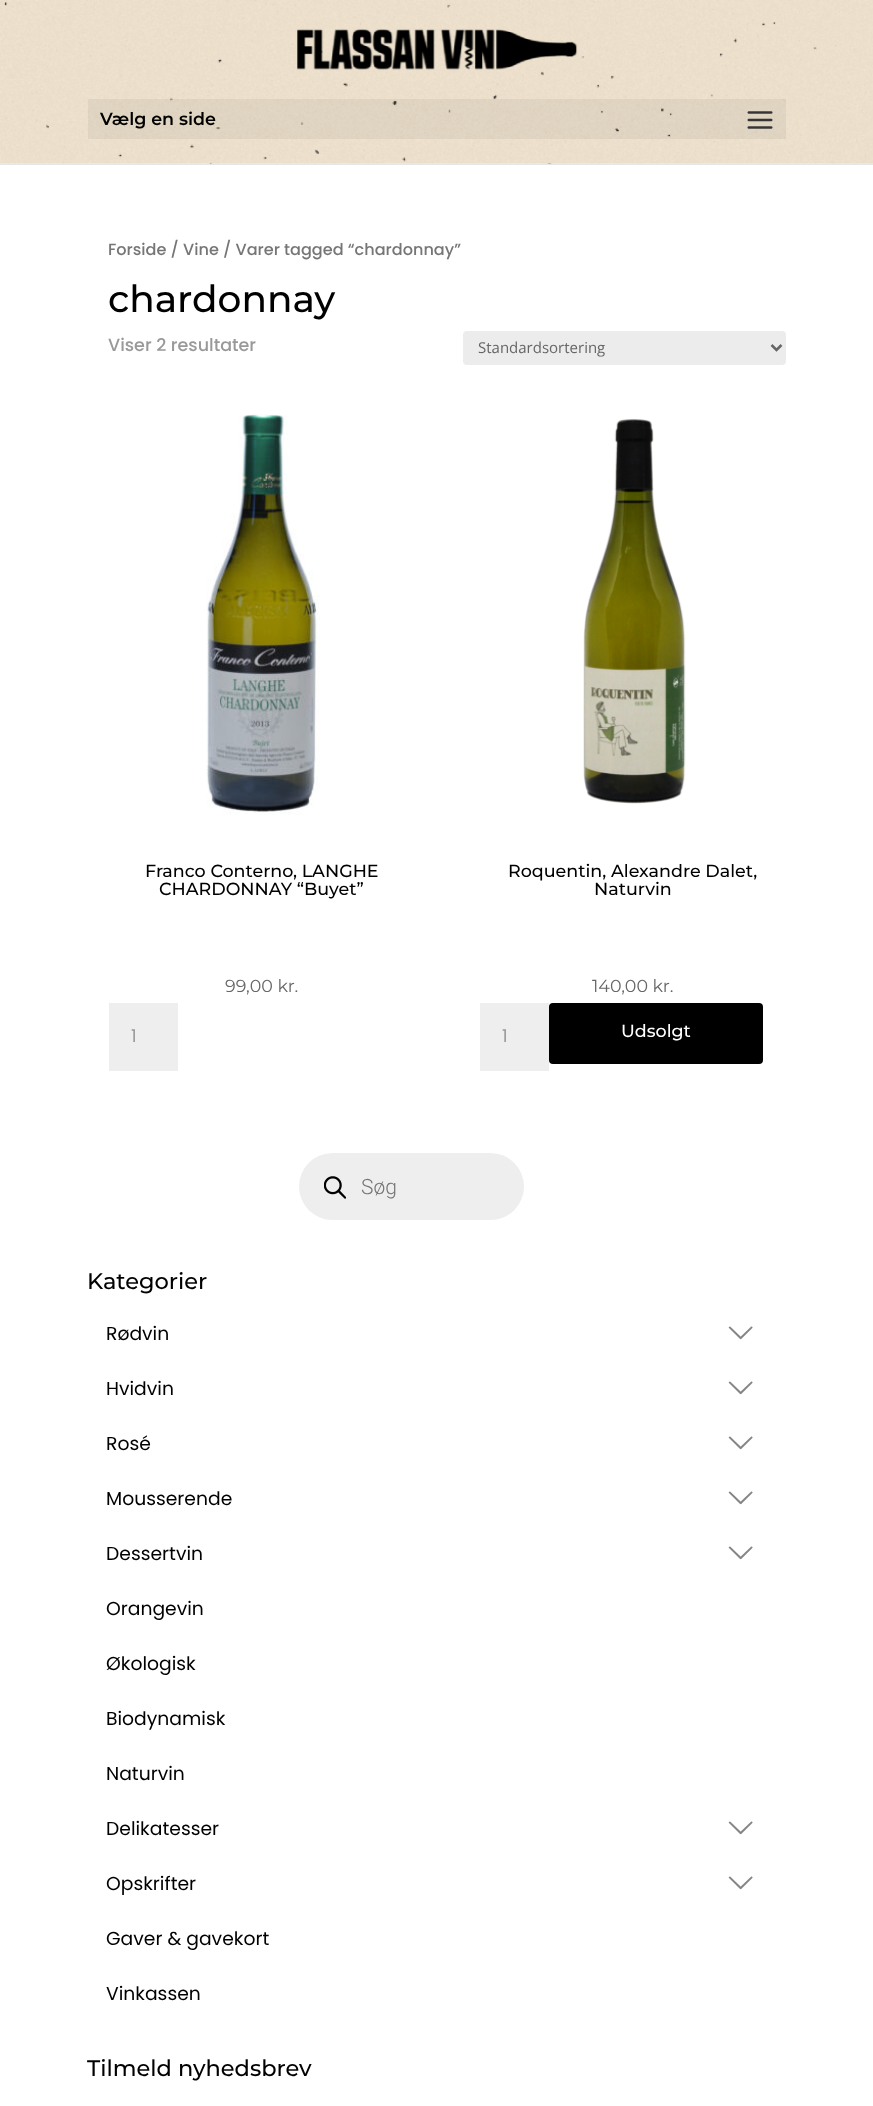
<svg xmlns="http://www.w3.org/2000/svg" xmlns:xlink="http://www.w3.org/1999/xlink" width="873" height="2106" viewBox="0 0 873 2106">
<style>
.cls-1{font:100 17.5px 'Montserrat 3';fill:#000000}
.cls-2{font:500 16.1px Poppins;fill:#767676}
.cls-3{font:100 37.5px Montserrat;fill:#000000}
.cls-4{font:500 17.5px Poppins;fill:#999999}
.cls-5{font:15px Open Sans;fill:#666666}
.cls-6{font:100 17.5px Montserrat;fill:#000000}
.cls-7{font:100 17.5px 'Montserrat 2';fill:#666666}
.cls-8{font:17.5px Poppins;fill:#999999}
.cls-9{font:100 17.5px Montserrat;fill:#ffffff}
.cls-10{font:300 21px Roboto;fill:#767676}
.cls-11{font:100 22.5px Montserrat;fill:#000000}
.cls-12{font:18.75px Poppins;fill:#000000}
</style>
<rect width="100%" height="100%" fill="#ffffff"/>
<path fill="#e6e6e6" d="M0 164V165H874V1V164Z"/>
<image xlink:href="image0.png" x="0" y="0" width="873" height="164"/>
<image xlink:href="image1.png" x="297" y="29" width="281" height="41"/>
<rect fill="#000000" fill-opacity="0.05" x="88" y="99" width="698" height="40"/>
<image xlink:href="image2.png" x="747" y="111" width="26" height="18"/>
<rect fill="#ececec" x="463" y="331" width="323" height="34" rx="4"/>
<path fill="none" stroke="#666666" stroke-width="2.5" d="M771.5 345L776.5 350L781.5 345"/>
<image xlink:href="image3.png" x="206" y="414" width="114" height="401"/>
<rect fill="#eeeeee" x="109" y="1003" width="69" height="68"/>
<image xlink:href="image4.png" x="583" y="419" width="103" height="385"/>
<rect fill="#eeeeee" x="480" y="1003" width="69" height="68"/>
<rect fill="#000000" x="549" y="1003" width="214" height="61" rx="4"/>
<rect fill="#eeeeee" x="299" y="1153" width="225" height="67" rx="33.5"/>
<image xlink:href="image5.png" x="324" y="1176" width="22" height="23"/>
<image xlink:href="image6.png" x="728" y="1326" width="25" height="14"/>
<image xlink:href="image6.png" x="728" y="1381" width="25" height="14"/>
<image xlink:href="image6.png" x="728" y="1436" width="25" height="14"/>
<image xlink:href="image6.png" x="728" y="1491" width="25" height="14"/>
<image xlink:href="image6.png" x="728" y="1546" width="25" height="14"/>
<image xlink:href="image6.png" x="728" y="1821" width="25" height="14"/>
<image xlink:href="image6.png" x="728" y="1876" width="25" height="14"/>
<text class="cls-1" x="100" y="125">Vælg en side</text>
<text class="cls-2" x="108" y="255">Forside / Vine / Varer tagged “chardonnay”</text>
<text class="cls-3" x="108" y="312">chardonnay</text>
<text class="cls-4" x="108" y="351">Viser 2 resultater</text>
<text class="cls-5" x="478" y="353">Standardsortering</text>
<text class="cls-6" x="145" y="877">Franco Conterno, LANGHE</text>
<text class="cls-6" x="159" y="895">CHARDONNAY “Buyet”</text>
<text class="cls-7" x="225" y="992">99,00 kr.</text>
<text class="cls-8" x="131" y="1042">1</text>
<text class="cls-6" x="508" y="877">Roquentin, Alexandre Dalet,</text>
<text class="cls-6" x="594" y="895">Naturvin</text>
<text class="cls-7" x="592" y="992">140,00 kr.</text>
<text class="cls-8" x="502" y="1042">1</text>
<text class="cls-9" x="621" y="1037">Udsolgt</text>
<text class="cls-10" x="361" y="1194">Søg</text>
<text class="cls-11" x="87" y="1289">Kategorier</text>
<text class="cls-12" x="106" y="1340">Rødvin</text>
<text class="cls-12" x="106" y="1395">Hvidvin</text>
<text class="cls-12" x="106" y="1450">Rosé</text>
<text class="cls-12" x="106" y="1505">Mousserende</text>
<text class="cls-12" x="106" y="1560">Dessertvin</text>
<text class="cls-12" x="106" y="1615">Orangevin</text>
<text class="cls-12" x="106" y="1670">Økologisk</text>
<text class="cls-12" x="106" y="1725">Biodynamisk</text>
<text class="cls-12" x="106" y="1780">Naturvin</text>
<text class="cls-12" x="106" y="1835">Delikatesser</text>
<text class="cls-12" x="106" y="1890">Opskrifter</text>
<text class="cls-12" x="106" y="1945">Gaver &amp; gavekort</text>
<text class="cls-12" x="106" y="2000">Vinkassen</text>
<text class="cls-11" x="87" y="2076">Tilmeld nyhedsbrev</text>
</svg>
